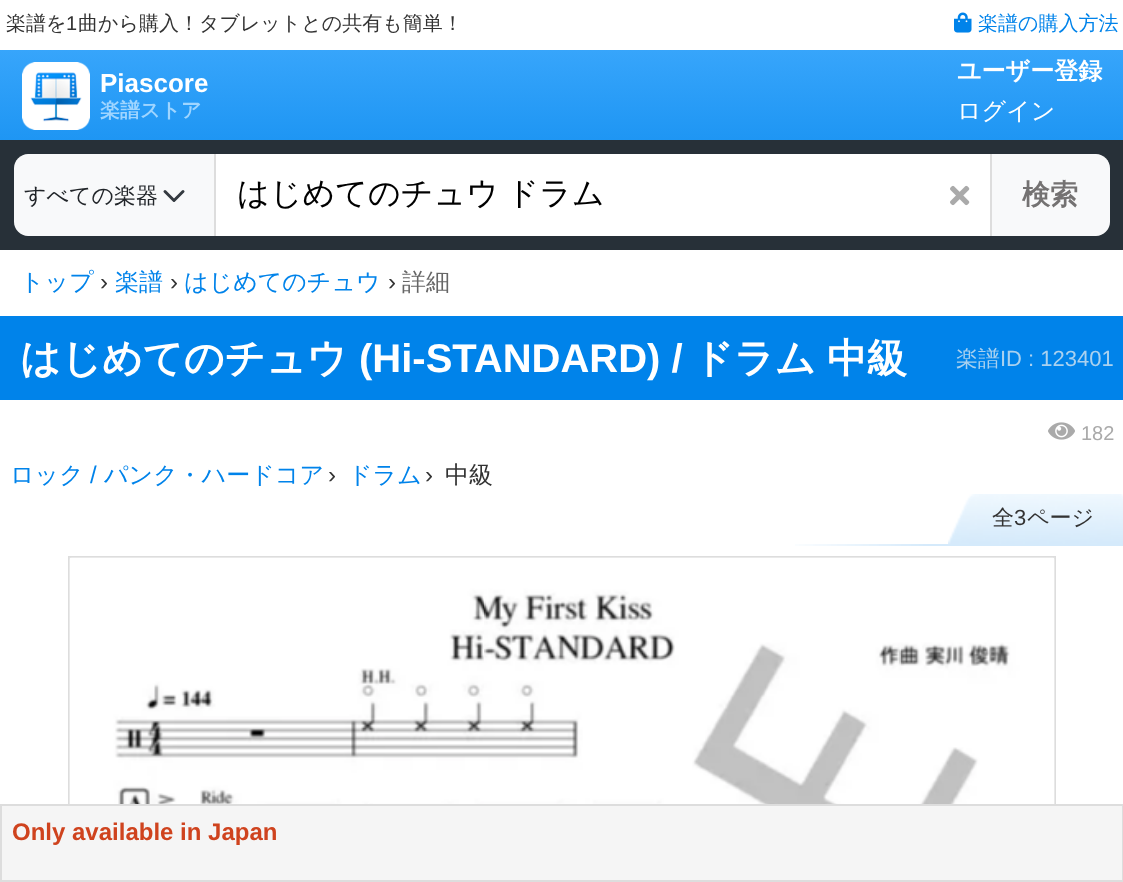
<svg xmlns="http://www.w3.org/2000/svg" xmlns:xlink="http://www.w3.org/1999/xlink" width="1123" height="882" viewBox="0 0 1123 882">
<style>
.cls-1{font:500 20px WenQuanYi Zen Hei;fill:#333333}
.cls-2{font:20px Liberation Sans;fill:#333333}
.cls-3{font:500 20px WenQuanYi Zen Hei;fill:#0083ea}
.cls-4{font:bold 26px Liberation Sans;fill:#ffffff}
.cls-5{font:bold 20px WenQuanYi Zen Hei;fill:#9fd5ff}
.cls-6{font:bold 24px WenQuanYi Zen Hei;fill:#ffffff}
.cls-7{font:500 24px WenQuanYi Zen Hei;fill:#ffffff}
.cls-8{font:500 22px WenQuanYi Zen Hei;fill:#212529}
.cls-9{font:500 32px WenQuanYi Zen Hei;fill:#000000}
.cls-10{font:bold 28px WenQuanYi Zen Hei;fill:#747272}
.cls-11{font:500 24px WenQuanYi Zen Hei;fill:#0083ea}
.cls-12{font:24px Liberation Sans;fill:#333333}
.cls-13{font:500 24px WenQuanYi Zen Hei;fill:#666666}
.cls-14{font:bold 40px WenQuanYi Zen Hei;fill:#ffffff}
.cls-15{font:bold 40px Liberation Sans;fill:#ffffff}
.cls-16{font:500 22px WenQuanYi Zen Hei;fill:#aad1ef}
.cls-17{font:22px Liberation Sans;fill:#aad1ef}
.cls-18{font:20px Liberation Sans;fill:#aaaaaa}
.cls-19{font:24px Liberation Sans;fill:#0083ea}
.cls-20{font:500 24px WenQuanYi Zen Hei;fill:#333333}
.cls-21{font:500 22px WenQuanYi Zen Hei;fill:#333333}
.cls-22{font:22px Liberation Sans;fill:#333333}
.cls-23{font:bold 24px Liberation Sans;fill:#cf431e}
</style>
<defs>
<linearGradient id="g1" gradientUnits="userSpaceOnUse" x1="562" y1="50" x2="562" y2="250"><stop offset="0" stop-color="#37a5fb"/><stop offset="1" stop-color="#0083ea"/></linearGradient>
</defs>
<rect width="100%" height="100%" fill="#ffffff"/>
<image xlink:href="image0.png" x="954" y="12" width="18" height="21"/>
<rect fill="url(#g1)" x="0" y="50" width="1123" height="90"/>
<image xlink:href="image1.png" x="22" y="62" width="68" height="68"/>
<rect fill="#273038" x="0" y="140" width="1123" height="110"/>
<path fill="#f8f9fa" d="M28 154H214V236H28C20.5 236 14 229.5 14 222V168C14 160.5 20.5 154 28 154Z"/>
<path fill="none" stroke="#343a40" stroke-width="3" stroke-linecap="round" stroke-linejoin="round" d="M165 191.5L174 200.5L183 191.5"/>
<rect fill="#ffffff" x="216" y="154" width="774" height="82"/>
<rect fill="#dddddd" x="214" y="154" width="2" height="82"/>
<image xlink:href="image2.png" x="950" y="185" width="20" height="21"/>
<path fill="#f8f9fa" d="M990 154H1096C1103.5 154 1110 160.5 1110 168V222C1110 229.5 1103.5 236 1096 236H990Z"/>
<rect fill="#dddddd" x="990" y="154" width="2" height="82"/>
<rect fill="#0083ea" x="0" y="316" width="1123" height="84"/>
<image xlink:href="image3.png" x="1048" y="422" width="27" height="18"/>
<image xlink:href="image4.png" x="948" y="494" width="175" height="50"/>
<image xlink:href="image5.png" x="795" y="544" width="328" height="2"/>
<rect fill="none" stroke="#dddddd" stroke-width="2" x="69" y="557" width="986" height="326"/>
<image xlink:href="image6.png" x="69" y="557" width="986" height="247"/>
<rect fill="#f5f5f5" stroke="#dddddd" stroke-width="2" x="1" y="805" width="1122" height="76"/>
<text class="cls-1" x="6" y="30">楽譜を</text>
<text class="cls-2" x="66" y="30">1</text>
<text class="cls-1" x="78" y="30">曲から購入！タブレットとの共有も簡単！</text>
<text class="cls-3" x="978" y="30">楽譜の購入方法</text>
<text class="cls-4" x="100" y="92">Piascore</text>
<text class="cls-5" x="100" y="117">楽譜ストア</text>
<text class="cls-6" x="957" y="79">ユーザー登録</text>
<text class="cls-7" x="957" y="119">ログイン</text>
<text class="cls-8" x="24" y="203">すべての楽器</text>
<text class="cls-9" x="237" y="204" word-spacing="-2">はじめてのチュウ ドラム</text>
<text class="cls-10" x="1022" y="204">検索</text>
<text class="cls-11" x="20" y="290">トップ</text>
<text class="cls-12" x="100" y="290">›</text>
<text class="cls-11" x="115" y="290">楽譜</text>
<text class="cls-12" x="170" y="290">›</text>
<text class="cls-11" x="184" y="290">はじめてのチュウ</text>
<text class="cls-12" x="388" y="290">›</text>
<text class="cls-13" x="402" y="290">詳細</text>
<text class="cls-14" x="20" y="372">はじめてのチュウ</text>
<text class="cls-15" x="359" y="372">(Hi-STANDARD) /</text>
<text class="cls-14" x="693" y="372">ドラム</text>
<text class="cls-14" x="827" y="372">中級</text>
<text class="cls-16" x="956" y="366">楽譜</text>
<text class="cls-17" x="1000" y="366">ID : 123401</text>
<text class="cls-18" x="1081" y="440">182</text>
<text class="cls-11" x="10" y="483">ロック</text>
<text class="cls-19" x="90" y="483">/</text>
<text class="cls-11" x="104" y="483">パンク・ハードコア</text>
<text class="cls-12" x="328" y="483">›</text>
<text class="cls-11" x="348" y="483">ドラム</text>
<text class="cls-12" x="425" y="483">›</text>
<text class="cls-20" x="445" y="483">中級</text>
<text class="cls-21" x="992" y="525">全</text>
<text class="cls-22" x="1014" y="525">3</text>
<text class="cls-21" x="1027" y="525">ページ</text>
<text class="cls-23" x="12" y="840">Only available in Japan</text>
</svg>
